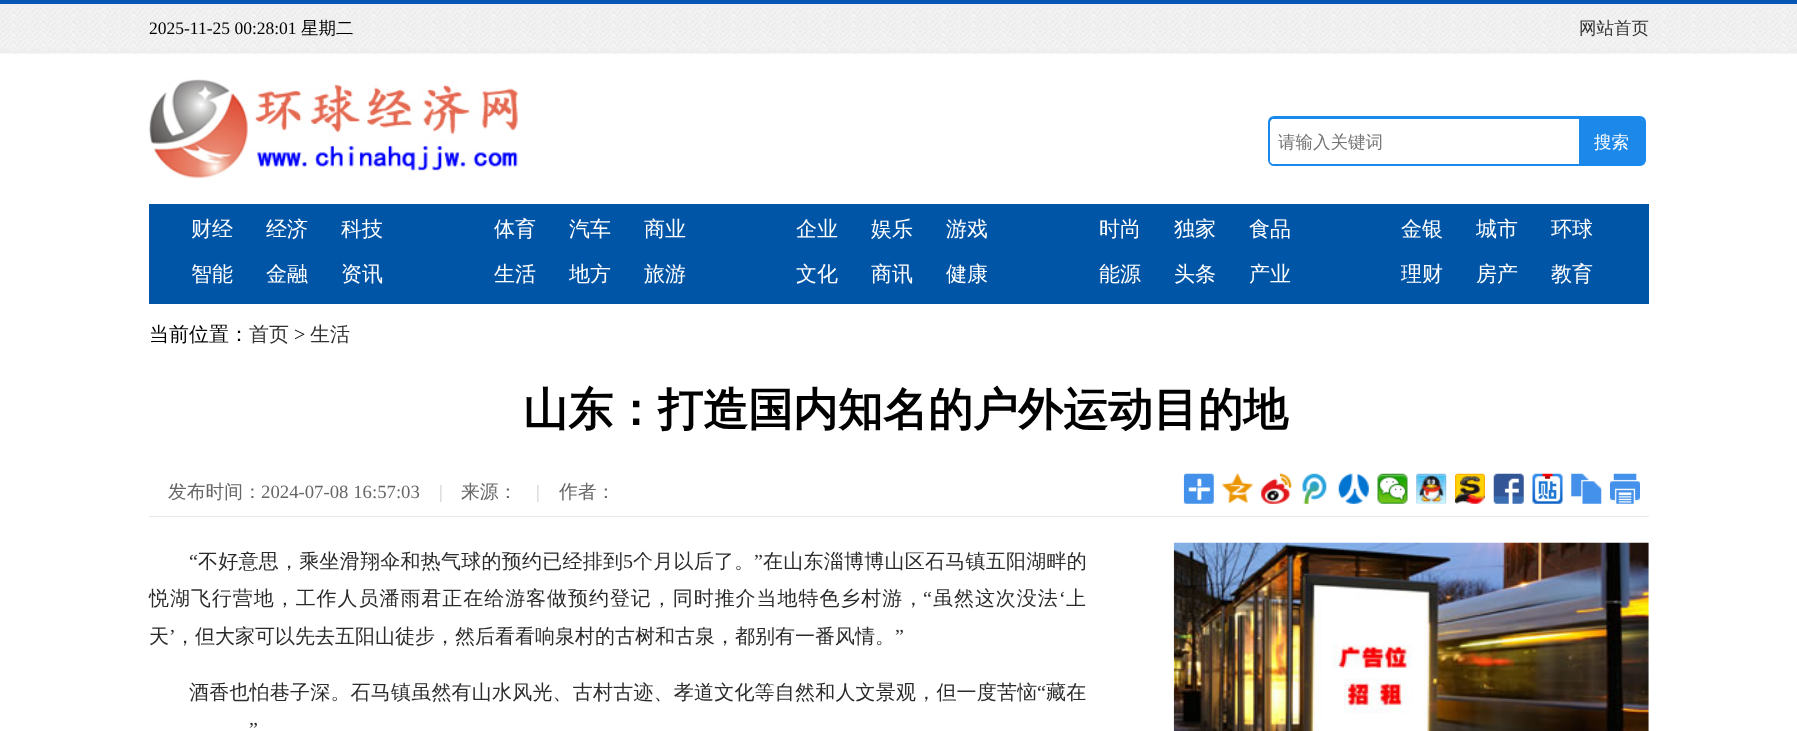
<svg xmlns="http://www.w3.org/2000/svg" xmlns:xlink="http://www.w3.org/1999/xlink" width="1797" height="731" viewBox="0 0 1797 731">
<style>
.cls-1{font:17.5px Liberation Serif;fill:#000000}
.cls-2{font:500 17.5px WenQuanYi Zen Hei;fill:#000000}
.cls-3{font:500 17.5px WenQuanYi Zen Hei;fill:#323232}
.cls-4{font:500 17.5px WenQuanYi Zen Hei;fill:#757575}
.cls-5{font:500 17.5px WenQuanYi Zen Hei;fill:#ffffff}
.cls-6{font:500 21px WenQuanYi Zen Hei;fill:#ffffff}
.cls-7{font:500 20px WenQuanYi Zen Hei;fill:#000000}
.cls-8{font:500 20px WenQuanYi Zen Hei;fill:#323232}
.cls-9{font:20px Liberation Serif;fill:#000000}
.cls-10{font:bold 45px WenQuanYi Zen Hei;fill:#000000}
.cls-11{font:500 18.75px WenQuanYi Zen Hei;fill:#666666}
.cls-12{font:18.75px Liberation Serif;fill:#666666}
.cls-13{font:18.75px Liberation Serif;fill:#cccccc}
.cls-14{font:20px Liberation Serif;letter-spacing:0.25px;fill:#2b2b2b}
.cls-15{font:500 20px WenQuanYi Zen Hei;letter-spacing:0.25px;fill:#2b2b2b}
.cls-16{font:500 20px WenQuanYi Zen Hei;letter-spacing:0.95px;fill:#2b2b2b}
.cls-17{font:20px Liberation Serif;letter-spacing:0.95px;fill:#2b2b2b}
.cls-18{font:500 20px WenQuanYi Zen Hei;fill:#2b2b2b}
.cls-19{font:20px Liberation Serif;fill:#2b2b2b}
.cls-20{font:500 20px WenQuanYi Zen Hei;letter-spacing:0.2px;fill:#2b2b2b}
.cls-21{font:20px Liberation Serif;letter-spacing:0.2px;fill:#2b2b2b}
</style>
<rect width="100%" height="100%" fill="#ffffff"/>
<image xlink:href="image0.png" x="0" y="4" width="1797" height="50"/>
<rect fill="#0555b4" x="0" y="0" width="1797" height="4"/>
<image xlink:href="image1.png" x="148" y="79" width="370" height="100"/>
<rect fill="none" stroke="#1a89ed" stroke-width="3" x="1269.5" y="117.5" width="375" height="47" rx="4.5"/>
<path fill="#ffffff" d="M1274 119H1579C1579.5 119 1580 119.5 1580 120V163C1580 163.5 1579.5 164 1579 164H1274C1272 164 1270 162 1270 160V123C1270 121 1272 119 1274 119Z"/>
<path fill="#ffffff" fill-rule="evenodd" d="M1270 123V160C1270 161 1270 162 1271 163V120ZM1274 119L1271 120H1579V163H1271C1272 164 1273 164 1274 164H1579C1580 164 1580 164 1580 163V120C1580 119 1580 119 1579 119Z"/>
<path fill="#1c89ea" d="M1579 119H1640C1642 119 1644 121 1644 123V160C1644 162 1642 164 1640 164H1579Z"/>
<path fill="#1c89ea" fill-rule="evenodd" d="M1579 119V164H1640C1641 164 1642 164 1643 163H1580V120H1643L1640 119ZM1644 123L1643 120V163C1644 162 1644 161 1644 160Z"/>
<rect fill="#0055a6" x="149" y="204" width="1500" height="100"/>
<rect fill="#e7e7e7" x="149" y="516" width="1500" height="1"/>
<image xlink:href="image2.png" x="1183" y="473" width="31" height="31"/>
<image xlink:href="image3.png" x="1222" y="473" width="31" height="30"/>
<image xlink:href="image4.png" x="1261" y="473" width="31" height="31"/>
<image xlink:href="image5.png" x="1302" y="473" width="25" height="31"/>
<image xlink:href="image6.png" x="1338" y="473" width="31" height="31"/>
<image xlink:href="image7.png" x="1377" y="473" width="31" height="31"/>
<image xlink:href="image8.png" x="1416" y="473" width="31" height="31"/>
<image xlink:href="image9.png" x="1455" y="473" width="30" height="31"/>
<image xlink:href="image10.png" x="1493" y="473" width="31" height="31"/>
<image xlink:href="image11.png" x="1532" y="473" width="31" height="31"/>
<image xlink:href="image12.png" x="1571" y="473" width="31" height="31"/>
<image xlink:href="image13.png" x="1610" y="473" width="30" height="31"/>
<image xlink:href="image14.png" x="1173" y="542" width="476" height="189"/>
<text class="cls-1" x="149" y="34">2025-11-25 00:28:01</text>
<text class="cls-2" x="301" y="34">星期二</text>
<text class="cls-3" x="1579" y="34">网站首页</text>
<text class="cls-4" x="1278" y="148">请输入关键词</text>
<text class="cls-5" x="1594" y="148">搜索</text>
<text class="cls-6" x="191" y="236">财经</text>
<text class="cls-6" x="266" y="236">经济</text>
<text class="cls-6" x="341" y="236">科技</text>
<text class="cls-6" x="191" y="281">智能</text>
<text class="cls-6" x="266" y="281">金融</text>
<text class="cls-6" x="341" y="281">资讯</text>
<text class="cls-6" x="494" y="236">体育</text>
<text class="cls-6" x="569" y="236">汽车</text>
<text class="cls-6" x="644" y="236">商业</text>
<text class="cls-6" x="494" y="281">生活</text>
<text class="cls-6" x="569" y="281">地方</text>
<text class="cls-6" x="644" y="281">旅游</text>
<text class="cls-6" x="796" y="236">企业</text>
<text class="cls-6" x="871" y="236">娱乐</text>
<text class="cls-6" x="946" y="236">游戏</text>
<text class="cls-6" x="796" y="281">文化</text>
<text class="cls-6" x="871" y="281">商讯</text>
<text class="cls-6" x="946" y="281">健康</text>
<text class="cls-6" x="1099" y="236">时尚</text>
<text class="cls-6" x="1174" y="236">独家</text>
<text class="cls-6" x="1249" y="236">食品</text>
<text class="cls-6" x="1099" y="281">能源</text>
<text class="cls-6" x="1174" y="281">头条</text>
<text class="cls-6" x="1249" y="281">产业</text>
<text class="cls-6" x="1401" y="236">金银</text>
<text class="cls-6" x="1476" y="236">城市</text>
<text class="cls-6" x="1551" y="236">环球</text>
<text class="cls-6" x="1401" y="281">理财</text>
<text class="cls-6" x="1476" y="281">房产</text>
<text class="cls-6" x="1551" y="281">教育</text>
<text class="cls-7" x="149" y="341">当前位置：</text>
<text class="cls-8" x="249" y="341">首页</text>
<text class="cls-9" x="294" y="341">&gt;</text>
<text class="cls-8" x="310" y="341">生活</text>
<text class="cls-10" x="523" y="425">山东：打造国内知名的户外运动目的地</text>
<text class="cls-11" x="168" y="498">发布时间：</text>
<text class="cls-12" x="261" y="498">2024-07-08 16:57:03</text>
<text class="cls-13" x="439" y="498">|</text>
<text class="cls-11" x="461" y="498">来源：</text>
<text class="cls-13" x="536" y="498">|</text>
<text class="cls-11" x="559" y="498">作者：</text>
<text class="cls-14" x="189" y="568">“</text>
<text class="cls-15" x="198" y="568">不好意思，乘坐滑翔伞和热气球的预约已经排到</text>
<text class="cls-14" x="623" y="568">5</text>
<text class="cls-15" x="633" y="568">个月以后了。</text>
<text class="cls-14" x="754" y="568">”</text>
<text class="cls-15" x="763" y="568">在山东淄博博山区石马镇五阳湖畔的</text>
<text class="cls-16" x="149" y="605">悦湖飞行营地，工作人员潘雨君正在给游客做预约登记，同时推介当地特色乡村游，</text>
<text class="cls-17" x="923" y="605">“</text>
<text class="cls-16" x="933" y="605">虽然这次没法</text>
<text class="cls-17" x="1059" y="605">‘</text>
<text class="cls-16" x="1066" y="605">上</text>
<text class="cls-18" x="149" y="643">天</text>
<text class="cls-19" x="169" y="643">’</text>
<text class="cls-18" x="175" y="643">，但大家可以先去五阳山徒步，然后看看响泉村的古树和古泉，都别有一番风情。</text>
<text class="cls-19" x="895" y="643">”</text>
<text class="cls-20" x="189" y="699">酒香也怕巷子深。石马镇虽然有山水风光、古村古迹、孝道文化等自然和人文景观，但一度苦恼</text>
<text class="cls-21" x="1037" y="699">“</text>
<text class="cls-20" x="1046" y="699">藏在</text>
<text class="cls-19" x="249" y="736">”</text>
</svg>
